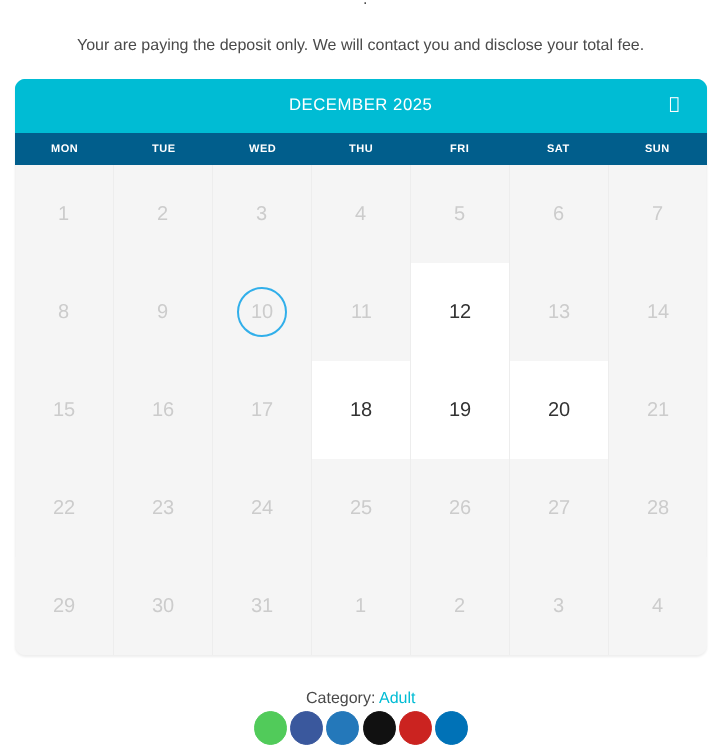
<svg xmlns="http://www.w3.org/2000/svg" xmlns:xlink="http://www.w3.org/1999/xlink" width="722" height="747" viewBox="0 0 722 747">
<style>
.cls-1{font:16px Liberation Sans;fill:#4a4a4a}
.cls-2{font:16.75px Liberation Sans;letter-spacing:0.5px;fill:#ffffff}
.cls-3{font:bold 11px Liberation Sans;letter-spacing:0.5px;fill:#ffffff}
.cls-4{font:20px Liberation Sans;fill:#cccccc}
.cls-5{font:20px Liberation Sans;fill:#333333}
.cls-6{font:16px Liberation Sans;fill:#00bcd4}
</style>
<rect width="100%" height="100%" fill="#ffffff"/>
<rect fill="#000000" fill-opacity="0.07" filter="blur(1px)" x="15" y="81" width="692" height="576" rx="10"/>
<path fill="#00bcd4" d="M25 79H697C702.5 79 707 83.5 707 89V133H15V89C15 83.5 19.5 79 25 79Z"/>
<path fill="#00bcd4" fill-rule="evenodd" d="M15 89V133H707V89L706 85V132H16V85ZM25 79L21 80H701L697 79Z"/>
<image xlink:href="image0.png" x="669" y="97" width="10" height="15"/>
<rect fill="#015e8c" x="15" y="133" width="692" height="32"/>
<rect fill="#f5f5f5" x="16" y="165" width="97" height="392"/>
<rect fill="#f5f5f5" x="114" y="165" width="98" height="490"/>
<rect fill="#f5f5f5" x="213" y="165" width="98" height="490"/>
<rect fill="#f5f5f5" x="312" y="165" width="98" height="196"/>
<rect fill="#f5f5f5" x="411" y="165" width="98" height="98"/>
<rect fill="#f5f5f5" x="510" y="165" width="98" height="196"/>
<rect fill="#f5f5f5" x="609" y="165" width="97" height="392"/>
<circle fill="none" stroke="#31afea" stroke-width="2" cx="262" cy="312" r="24"/>
<rect fill="#ffffff" x="411" y="263" width="98" height="196"/>
<rect fill="#ffffff" x="312" y="361" width="98" height="98"/>
<rect fill="#ffffff" x="510" y="361" width="98" height="98"/>
<rect fill="#f5f5f5" x="312" y="459" width="98" height="196"/>
<rect fill="#f5f5f5" x="411" y="459" width="98" height="196"/>
<rect fill="#f5f5f5" x="510" y="459" width="98" height="196"/>
<path fill="#f5f5f5" d="M15 557H113V655H25C19.5 655 15 650.5 15 645Z"/>
<path fill="#f5f5f5" d="M609 557H707V645C707 650.5 702.5 655 697 655H609Z"/>
<rect fill="#51cb5a" stroke="#51cb5a" x="254.5" y="711.5" width="32" height="33" rx="16"/>
<rect fill="#3a589d" stroke="#3a589d" x="290.5" y="711.5" width="32" height="33" rx="16"/>
<rect fill="#2478ba" stroke="#2478ba" x="326.5" y="711.5" width="32" height="33" rx="16"/>
<rect fill="#111111" stroke="#111111" x="363.5" y="711.5" width="32" height="33" rx="16"/>
<rect fill="#cb2320" stroke="#cb2320" x="399.5" y="711.5" width="32" height="33" rx="16"/>
<rect fill="#0072b7" stroke="#0072b7" x="435.5" y="711.5" width="32" height="33" rx="16"/>
<text class="cls-1" x="363" y="4">.</text>
<text class="cls-1" x="77" y="50">Your are paying the deposit only. We will contact you and disclose your total fee.</text>
<text class="cls-2" x="289" y="110">DECEMBER 2025</text>
<text class="cls-3" x="51" y="152">MON</text>
<text class="cls-3" x="152" y="152">TUE</text>
<text class="cls-3" x="249" y="152">WED</text>
<text class="cls-3" x="349" y="152">THU</text>
<text class="cls-3" x="450" y="152">FRI</text>
<text class="cls-3" x="547" y="152">SAT</text>
<text class="cls-3" x="645" y="152">SUN</text>
<text class="cls-4" x="58" y="220">1</text>
<text class="cls-4" x="157" y="220">2</text>
<text class="cls-4" x="256" y="220">3</text>
<text class="cls-4" x="355" y="220">4</text>
<text class="cls-4" x="454" y="220">5</text>
<text class="cls-4" x="553" y="220">6</text>
<text class="cls-4" x="652" y="220">7</text>
<text class="cls-4" x="58" y="318">8</text>
<text class="cls-4" x="157" y="318">9</text>
<text class="cls-4" x="251" y="318">10</text>
<text class="cls-4" x="351" y="318">11</text>
<text class="cls-5" x="449" y="318">12</text>
<text class="cls-4" x="548" y="318">13</text>
<text class="cls-4" x="647" y="318">14</text>
<text class="cls-4" x="53" y="416">15</text>
<text class="cls-4" x="152" y="416">16</text>
<text class="cls-4" x="251" y="416">17</text>
<text class="cls-5" x="350" y="416">18</text>
<text class="cls-5" x="449" y="416">19</text>
<text class="cls-5" x="548" y="416">20</text>
<text class="cls-4" x="647" y="416">21</text>
<text class="cls-4" x="53" y="514">22</text>
<text class="cls-4" x="152" y="514">23</text>
<text class="cls-4" x="251" y="514">24</text>
<text class="cls-4" x="350" y="514">25</text>
<text class="cls-4" x="449" y="514">26</text>
<text class="cls-4" x="548" y="514">27</text>
<text class="cls-4" x="647" y="514">28</text>
<text class="cls-4" x="53" y="612">29</text>
<text class="cls-4" x="152" y="612">30</text>
<text class="cls-4" x="251" y="612">31</text>
<text class="cls-4" x="355" y="612">1</text>
<text class="cls-4" x="454" y="612">2</text>
<text class="cls-4" x="553" y="612">3</text>
<text class="cls-4" x="652" y="612">4</text>
<text class="cls-1" x="306" y="703">Category:</text>
<text class="cls-6" x="379" y="703">Adult</text>
</svg>
